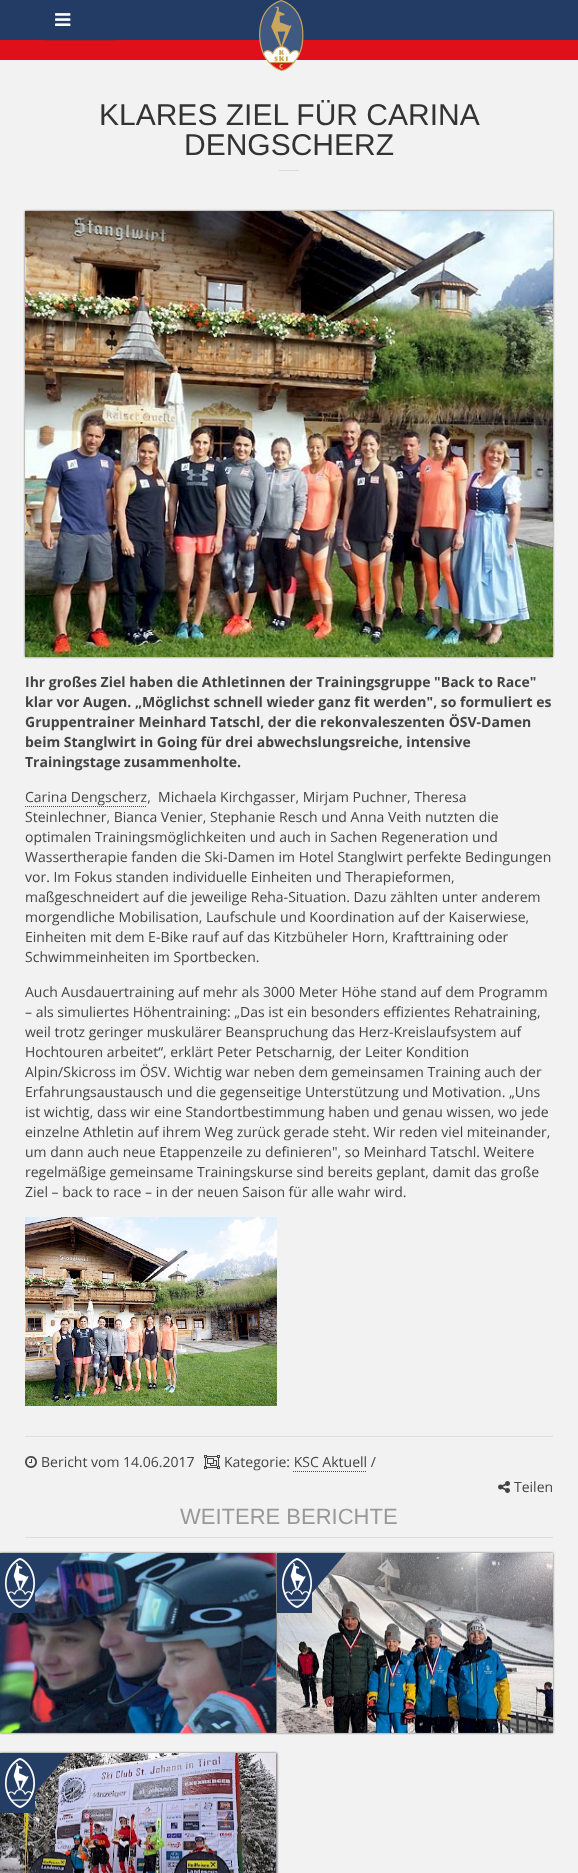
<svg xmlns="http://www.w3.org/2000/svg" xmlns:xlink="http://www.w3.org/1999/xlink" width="578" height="1873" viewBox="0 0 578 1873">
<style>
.cls-1{font:30px Liberation Sans;fill:#333333}
.cls-2{font:bold 14px Open Sans;fill:#444444}
.cls-3{font:14px Open Sans;fill:#444444}
.cls-4{font:22px Liberation Sans;fill:#999999}
</style>
<rect width="100%" height="100%" fill="#f2f2f2"/>
<rect fill="#e0101a" x="0" y="40" width="578" height="20"/>
<rect fill="#323232" fill-opacity="0.75" filter="blur(1px)" x="30" y="8" width="100" height="32" rx="20"/>
<rect fill="#233c65" x="0" y="0" width="578" height="40"/>
<image xlink:href="image0.png" x="55" y="13" width="16" height="13"/>
<image xlink:href="image1.png" x="259" y="0" width="45" height="71"/>
<rect fill="#dddddd" x="279" y="170" width="20" height="1"/>
<rect fill="#323232" fill-opacity="0.75" filter="blur(1px)" x="25" y="211" width="528" height="446"/>
<image xlink:href="image2.png" x="25" y="211" width="528" height="446"/>
<path fill="none" stroke="#444444" stroke-dasharray="1 1" d="M25 806.5H147"/>
<image xlink:href="image3.png" x="25" y="1217" width="252" height="189"/>
<rect fill="#dddddd" x="25" y="1436" width="528" height="1"/>
<image xlink:href="image4.png" x="25" y="1456" width="12" height="12"/>
<image xlink:href="image5.png" x="204" y="1455" width="16" height="14"/>
<path fill="none" stroke="#444444" stroke-dasharray="1 1" d="M293 1471.5H367"/>
<image xlink:href="image6.png" x="498" y="1481" width="12" height="12"/>
<rect fill="#dddddd" x="25" y="1537" width="528" height="1"/>
<rect fill="#323232" fill-opacity="0.75" filter="blur(1px)" x="0" y="1553" width="277" height="180"/>
<rect fill="#323232" fill-opacity="0.75" filter="blur(1px)" x="277" y="1553" width="276" height="180"/>
<image xlink:href="image7.png" x="0" y="1553" width="276" height="180"/>
<rect fill="#233d65" x="0" y="1553" width="35" height="60"/>
<image xlink:href="image8.png" x="5" y="1558" width="30" height="50"/>
<path fill="#233d65" d="M35 1593V1553H69Z"/>
<image xlink:href="image9.png" x="277" y="1553" width="276" height="180"/>
<rect fill="#233d65" x="277" y="1553" width="35" height="60"/>
<image xlink:href="image8.png" x="282" y="1558" width="30" height="50"/>
<path fill="#233d65" d="M312 1593V1553H346Z"/>
<rect fill="#323232" fill-opacity="0.75" filter="blur(1px)" x="0" y="1753" width="277" height="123"/>
<image xlink:href="image10.png" x="0" y="1753" width="276" height="120"/>
<rect fill="#233d65" x="0" y="1753" width="35" height="60"/>
<image xlink:href="image8.png" x="5" y="1758" width="30" height="50"/>
<path fill="#233d65" d="M35 1793V1753H69Z"/>
<text class="cls-1" x="99" y="125">KLARES ZIEL FÜR CARINA</text>
<text class="cls-1" x="184" y="155">DENGSCHERZ</text>
<text class="cls-2"><tspan x="25" y="687">Ihr großes Ziel haben die Athletinnen der Trainingsgruppe "Back to Race"</tspan><tspan x="25" y="707">klar vor Augen. „Möglichst schnell wieder ganz fit werden", so formuliert es</tspan><tspan x="25" y="727">Gruppentrainer Meinhard Tatschl, der die rekonvaleszenten ÖSV-Damen</tspan><tspan x="25" y="747">beim Stanglwirt in Going für drei abwechslungsreiche, intensive</tspan><tspan x="25" y="767">Trainingstage zusammenholte.</tspan></text>
<text class="cls-3" xml:space="preserve"><tspan x="25" y="802">Carina Dengscherz,  Michaela Kirchgasser, Mirjam Puchner, Theresa</tspan><tspan x="25" y="822">Steinlechner, Bianca Venier, Stephanie Resch und Anna Veith nutzten die</tspan><tspan x="25" y="842">optimalen Trainingsmöglichkeiten und auch in Sachen Regeneration und</tspan><tspan x="25" y="862">Wassertherapie fanden die Ski-Damen im Hotel Stanglwirt perfekte Bedingungen</tspan><tspan x="25" y="882">vor. Im Fokus standen individuelle Einheiten und Therapieformen,</tspan><tspan x="25" y="902">maßgeschneidert auf die jeweilige Reha-Situation. Dazu zählten unter anderem</tspan><tspan x="25" y="922">morgendliche Mobilisation, Laufschule und Koordination auf der Kaiserwiese,</tspan><tspan x="25" y="942">Einheiten mit dem E-Bike rauf auf das Kitzbüheler Horn, Krafttraining oder</tspan><tspan x="25" y="962">Schwimmeinheiten im Sportbecken.</tspan></text>
<text class="cls-3"><tspan x="25" y="997">Auch Ausdauertraining auf mehr als 3000 Meter Höhe stand auf dem Programm</tspan><tspan x="25" y="1017">– als simuliertes Höhentraining: „Das ist ein besonders effizientes Rehatraining,</tspan><tspan x="25" y="1037">weil trotz geringer muskulärer Beanspruchung das Herz-Kreislaufsystem auf</tspan><tspan x="25" y="1057">Hochtouren arbeitet“, erklärt Peter Petscharnig, der Leiter Kondition</tspan><tspan x="25" y="1077">Alpin/Skicross im ÖSV. Wichtig war neben dem gemeinsamen Training auch der</tspan><tspan x="25" y="1097">Erfahrungsaustausch und die gegenseitige Unterstützung und Motivation. „Uns</tspan><tspan x="25" y="1117">ist wichtig, dass wir eine Standortbestimmung haben und genau wissen, wo jede</tspan><tspan x="25" y="1137">einzelne Athletin auf ihrem Weg zurück gerade steht. Wir reden viel miteinander,</tspan><tspan x="25" y="1157">um dann auch neue Etappenzeile zu definieren", so Meinhard Tatschl. Weitere</tspan><tspan x="25" y="1177">regelmäßige gemeinsame Trainingskurse sind bereits geplant, damit das große</tspan><tspan x="25" y="1197">Ziel – back to race – in der neuen Saison für alle wahr wird.</tspan></text>
<text class="cls-3" x="41" y="1467">Bericht vom 14.06.2017</text>
<text class="cls-3" x="224" y="1467">Kategorie: KSC Aktuell /</text>
<text class="cls-3" x="514" y="1492">Teilen</text>
<text class="cls-4" x="180" y="1524">WEITERE BERICHTE</text>
</svg>
